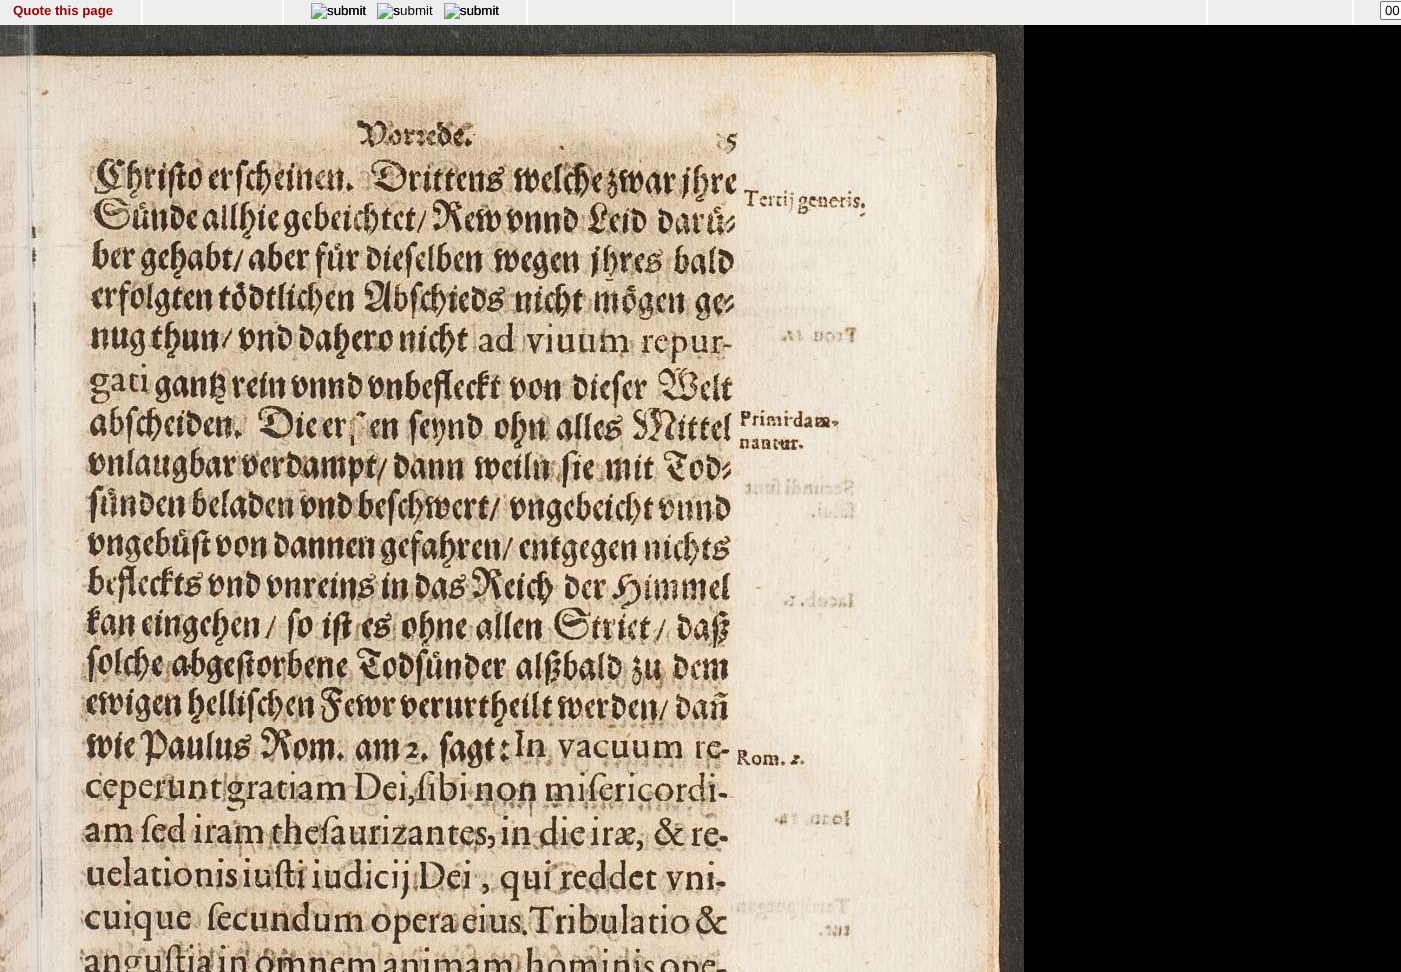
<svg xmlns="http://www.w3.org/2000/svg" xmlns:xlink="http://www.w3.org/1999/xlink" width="1401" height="972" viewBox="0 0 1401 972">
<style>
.cls-1{font:bold 13.25px Liberation Sans;fill:#990000}
.cls-2{font:13.25px Liberation Sans;fill:#000000}
</style>
<rect width="100%" height="100%" fill="#eeeeee"/>
<rect fill="#ffffff" x="141" y="0" width="2" height="25"/>
<rect fill="#ffffff" x="282" y="0" width="2" height="25"/>
<rect fill="#ffffff" x="526" y="0" width="2" height="25"/>
<image xlink:href="image0.png" x="311" y="3" width="55" height="16"/>
<image xlink:href="image1.png" x="377" y="3" width="56" height="16"/>
<image xlink:href="image2.png" x="444" y="3" width="55" height="16"/>
<rect fill="#ffffff" x="733" y="0" width="2" height="25"/>
<rect fill="#ffffff" x="1206" y="0" width="2" height="25"/>
<rect fill="#ffffff" x="1352" y="0" width="2" height="25"/>
<rect fill="#ffffff" stroke="#767676" x="1380.5" y="1.5" width="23" height="18" rx="1.5"/>
<rect fill="#000000" x="1024" y="25" width="377" height="947"/>
<image xlink:href="image3.png" x="0" y="25" width="1024" height="947"/>
<text class="cls-1" x="13" y="15">Quote this page</text>
<text class="cls-2" x="327" y="15">submit</text>
<text class="cls-2" x="393" y="15">s</text>
<text class="cls-2" x="460" y="15">submit</text>
<text class="cls-2" x="1385" y="15">00</text>
</svg>
